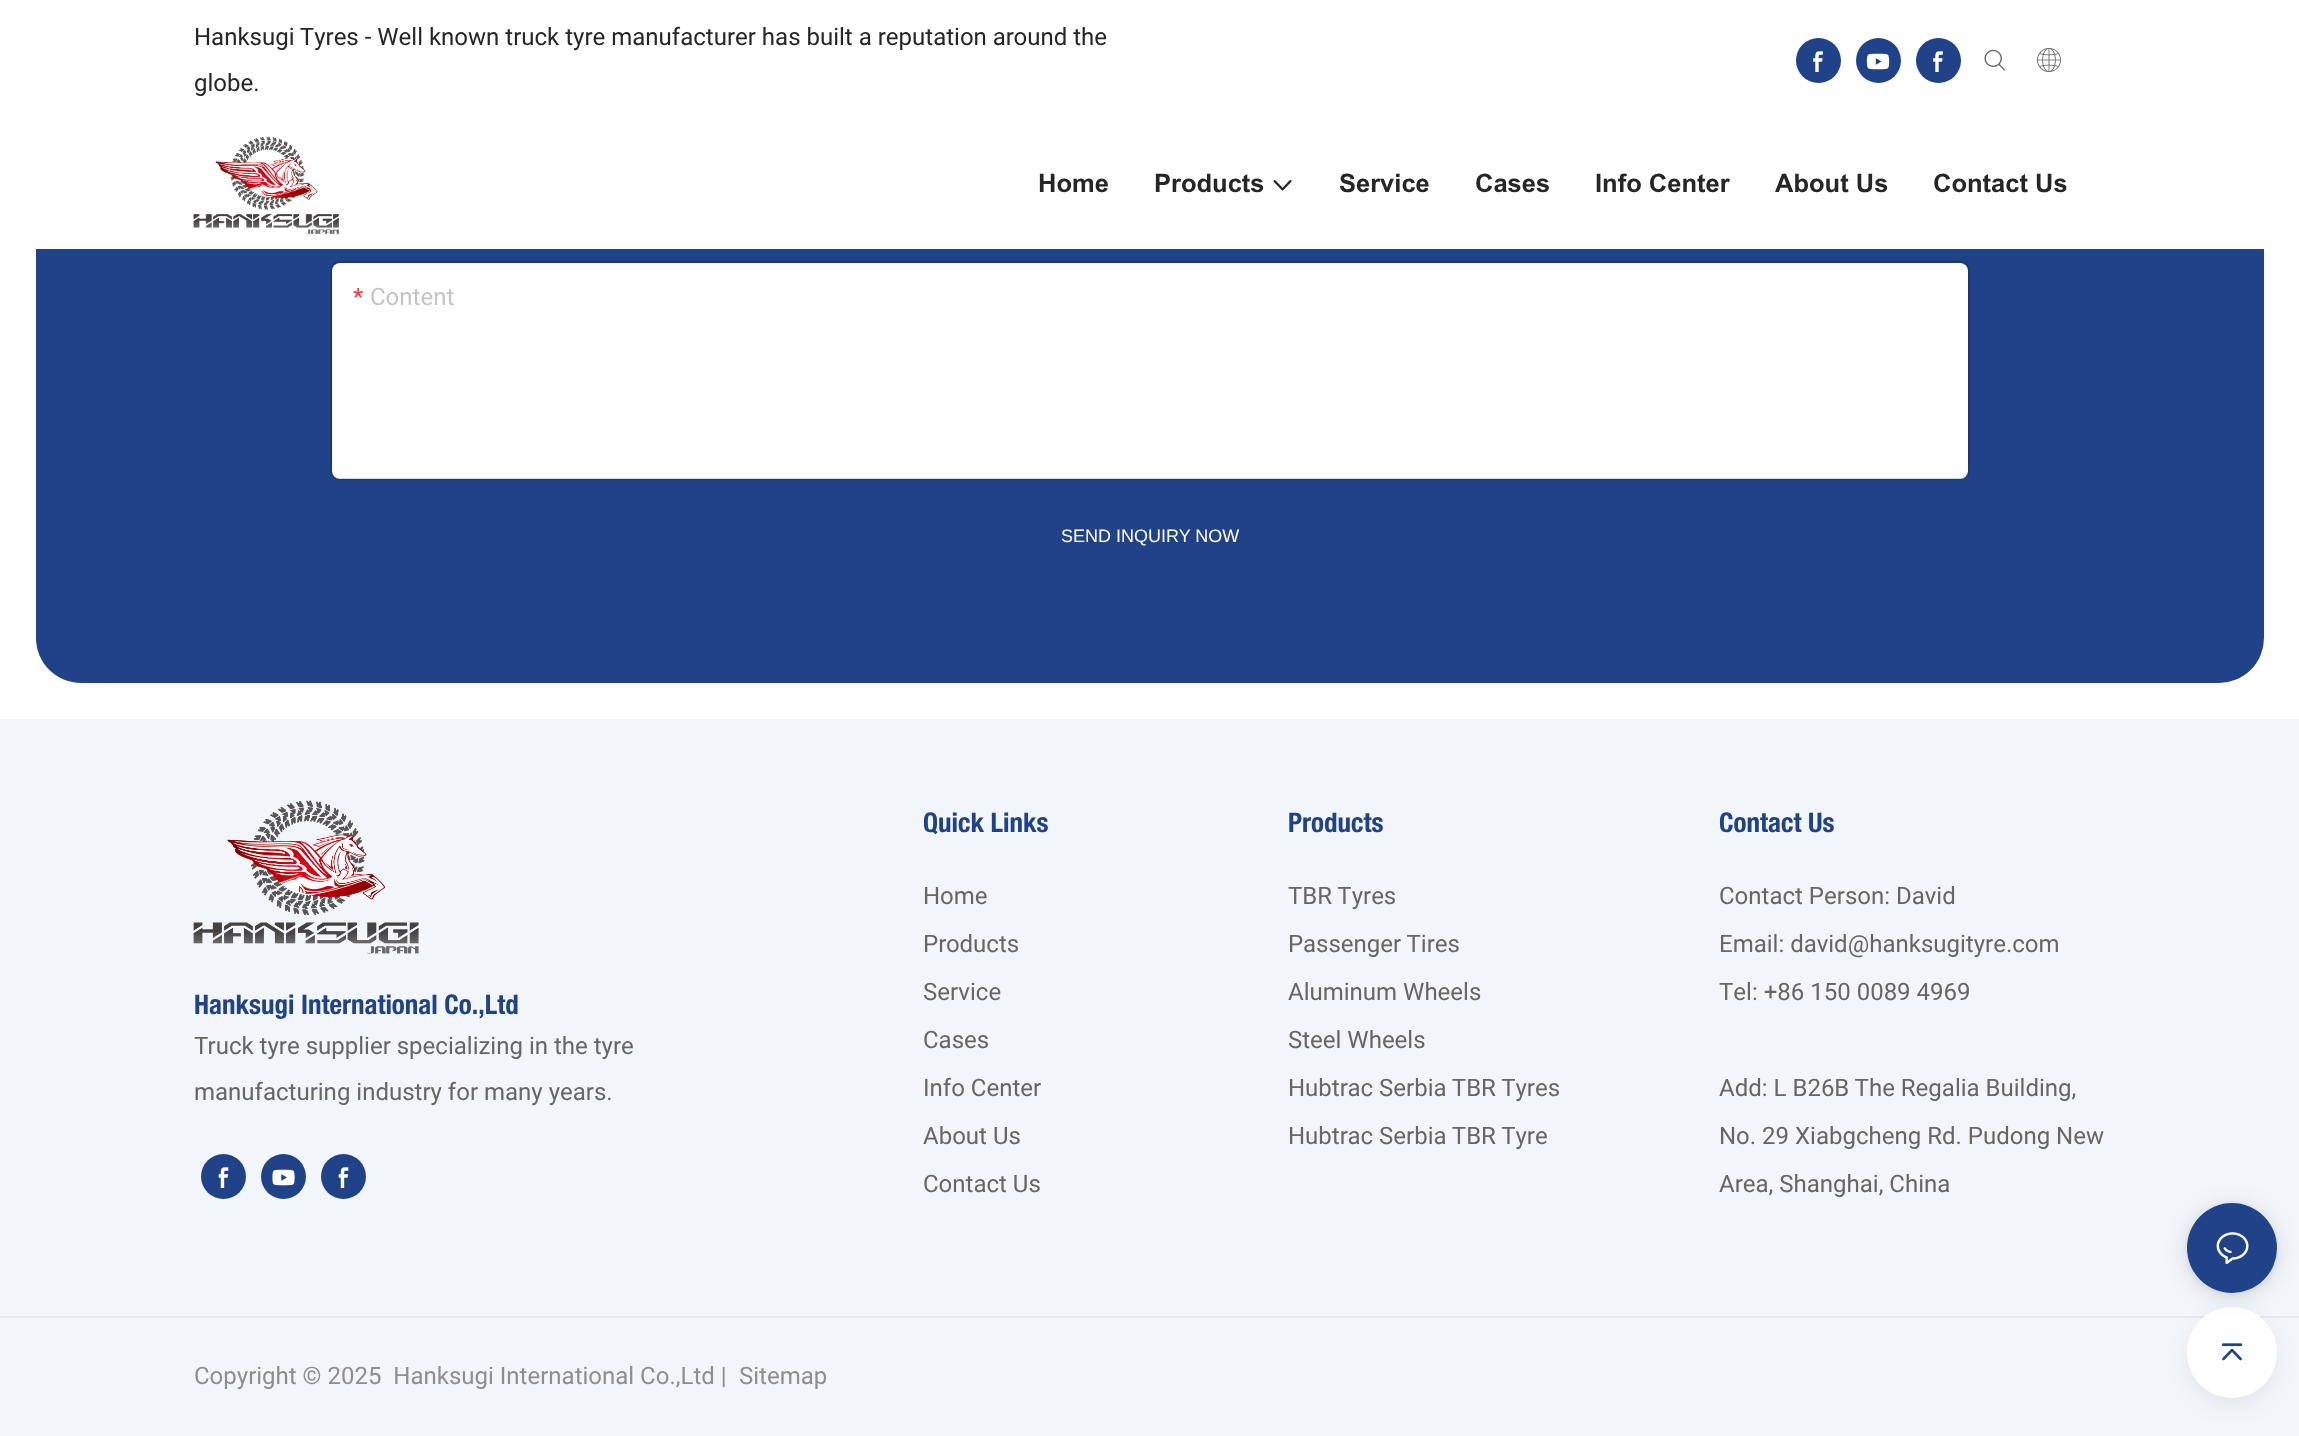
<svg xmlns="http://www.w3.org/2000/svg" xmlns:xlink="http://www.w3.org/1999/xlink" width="2299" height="1436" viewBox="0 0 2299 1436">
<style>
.cls-1{font:24px Heebo;fill:#262626}
.cls-2{font:bold 25.5px Arial;fill:#262626}
.cls-3{font:24px Heebo;fill:#ff3333}
.cls-4{font:24px Heebo;fill:#c4c4c4}
.cls-5{font:18px Liberation Sans;fill:#ffffff}
.cls-6{font:bold 27px Helvetica Neue;fill:#204289}
.cls-7{font:24px Heebo;fill:#666666}
.cls-8{font:24px Heebo;fill:#8c8e90}
</style>
<rect width="100%" height="100%" fill="#ffffff"/>
<rect fill="#204289" x="36" y="-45" width="2228" height="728" rx="45"/>
<rect fill="#ffffff" x="36" y="0" width="2228" height="249"/>
<circle fill="#204289" cx="1818.5" cy="60.5" r="22.5"/>
<image xlink:href="image0.png" x="1813" y="51" width="10" height="21"/>
<circle fill="#204289" cx="1878.5" cy="60.5" r="22.5"/>
<image xlink:href="image1.png" x="1866" y="53" width="24" height="17"/>
<circle fill="#204289" cx="1938.5" cy="60.5" r="22.5"/>
<image xlink:href="image0.png" x="1933" y="51" width="10" height="21"/>
<image xlink:href="image2.png" x="1984" y="49" width="22" height="22"/>
<image xlink:href="image3.png" x="2037" y="48" width="24" height="24"/>
<image xlink:href="image4.png" x="193" y="136" width="146" height="98"/>
<image xlink:href="image5.png" x="1273" y="180" width="19" height="11"/>
<rect fill="#ffffff" x="332" y="263" width="1636" height="216" rx="8"/>
<rect fill="none" stroke="#000000" stroke-opacity="0.15" stroke-width="2" x="331" y="262" width="1638" height="217" rx="8"/>
<rect fill="#f2f6fa" x="0" y="719" width="2299" height="597"/>
<image xlink:href="image6.png" x="193" y="800" width="226" height="154"/>
<circle fill="#204289" cx="223.5" cy="1176.5" r="22.5"/>
<image xlink:href="image7.png" x="218" y="1167" width="11" height="21"/>
<circle fill="#204289" cx="283.5" cy="1176.5" r="22.5"/>
<image xlink:href="image8.png" x="272" y="1169" width="23" height="17"/>
<circle fill="#204289" cx="343.5" cy="1176.5" r="22.5"/>
<image xlink:href="image7.png" x="338" y="1167" width="11" height="21"/>
<rect fill="#f2f6fa" x="0" y="1318" width="2299" height="118"/>
<rect fill="#e6e9ec" x="0" y="1316" width="2299" height="2"/>
<rect fill="#282f36" fill-opacity="0.08" filter="blur(11px)" x="2187" y="1314" width="90" height="92" rx="45"/>
<rect fill="#ffffff" x="2187" y="1307" width="90" height="91" rx="45"/>
<rect fill="#000000" fill-opacity="0.12" filter="blur(12px)" x="2187" y="1206" width="90" height="90" rx="45"/>
<rect fill="#000000" fill-opacity="0.06" filter="blur(3px)" x="2187" y="1205" width="90" height="90" rx="45"/>
<circle fill="#204289" cx="2232" cy="1248" r="45"/>
<image xlink:href="image9.png" x="2216" y="1232" width="33" height="33"/>
<image xlink:href="image10.png" x="2221" y="1343" width="22" height="18"/>
<text class="cls-1"><tspan x="194" y="45">Hanksugi Tyres - Well known truck tyre manufacturer has built a reputation around the</tspan><tspan x="194" y="91">globe.</tspan></text>
<text class="cls-2" x="1038" y="192">Home</text>
<text class="cls-2" x="1154" y="192">Products</text>
<text class="cls-2" x="1339" y="192">Service</text>
<text class="cls-2" x="1475" y="192">Cases</text>
<text class="cls-2" x="1595" y="192">Info Center</text>
<text class="cls-2" x="1775" y="192">About Us</text>
<text class="cls-2" x="1933" y="192">Contact Us</text>
<text class="cls-3" x="353" y="305">*</text>
<text class="cls-4" x="370" y="305">Content</text>
<text class="cls-5" x="1061" y="542">SEND INQUIRY NOW</text>
<text class="cls-6" x="194" y="1014">Hanksugi International Co.,Ltd</text>
<text class="cls-7"><tspan x="194" y="1054">Truck tyre supplier specializing in the tyre</tspan><tspan x="194" y="1100">manufacturing industry for many years.</tspan></text>
<text class="cls-6" x="923" y="832">Quick Links</text>
<text class="cls-7" x="923" y="904">Home</text>
<text class="cls-7" x="923" y="952">Products</text>
<text class="cls-7" x="923" y="1000">Service</text>
<text class="cls-7" x="923" y="1048">Cases</text>
<text class="cls-7" x="923" y="1096">Info Center</text>
<text class="cls-7" x="923" y="1144">About Us</text>
<text class="cls-7" x="923" y="1192">Contact Us</text>
<text class="cls-6" x="1288" y="832">Products</text>
<text class="cls-7" x="1288" y="904">TBR Tyres</text>
<text class="cls-7" x="1288" y="952">Passenger Tires</text>
<text class="cls-7" x="1288" y="1000">Aluminum Wheels</text>
<text class="cls-7" x="1288" y="1048">Steel Wheels</text>
<text class="cls-7" x="1288" y="1096">Hubtrac Serbia TBR Tyres</text>
<text class="cls-7" x="1288" y="1144">Hubtrac Serbia TBR Tyre</text>
<text class="cls-6" x="1719" y="832">Contact Us</text>
<text class="cls-7" x="1719" y="904">Contact Person: David</text>
<text class="cls-7" x="1719" y="952">Email: david@hanksugityre.com</text>
<text class="cls-7" x="1719" y="1000">Tel: +86 150 0089 4969</text>
<text class="cls-7" x="1719" y="1096">Add: L B26B The Regalia Building,</text>
<text class="cls-7" x="1719" y="1144">No. 29 Xiabgcheng Rd. Pudong New</text>
<text class="cls-7" x="1719" y="1192">Area, Shanghai, China</text>
<text class="cls-8" xml:space="preserve" x="194" y="1384">Copyright © 2025  Hanksugi International Co.,Ltd |</text>
<text class="cls-8" x="739" y="1384">Sitemap</text>
</svg>
